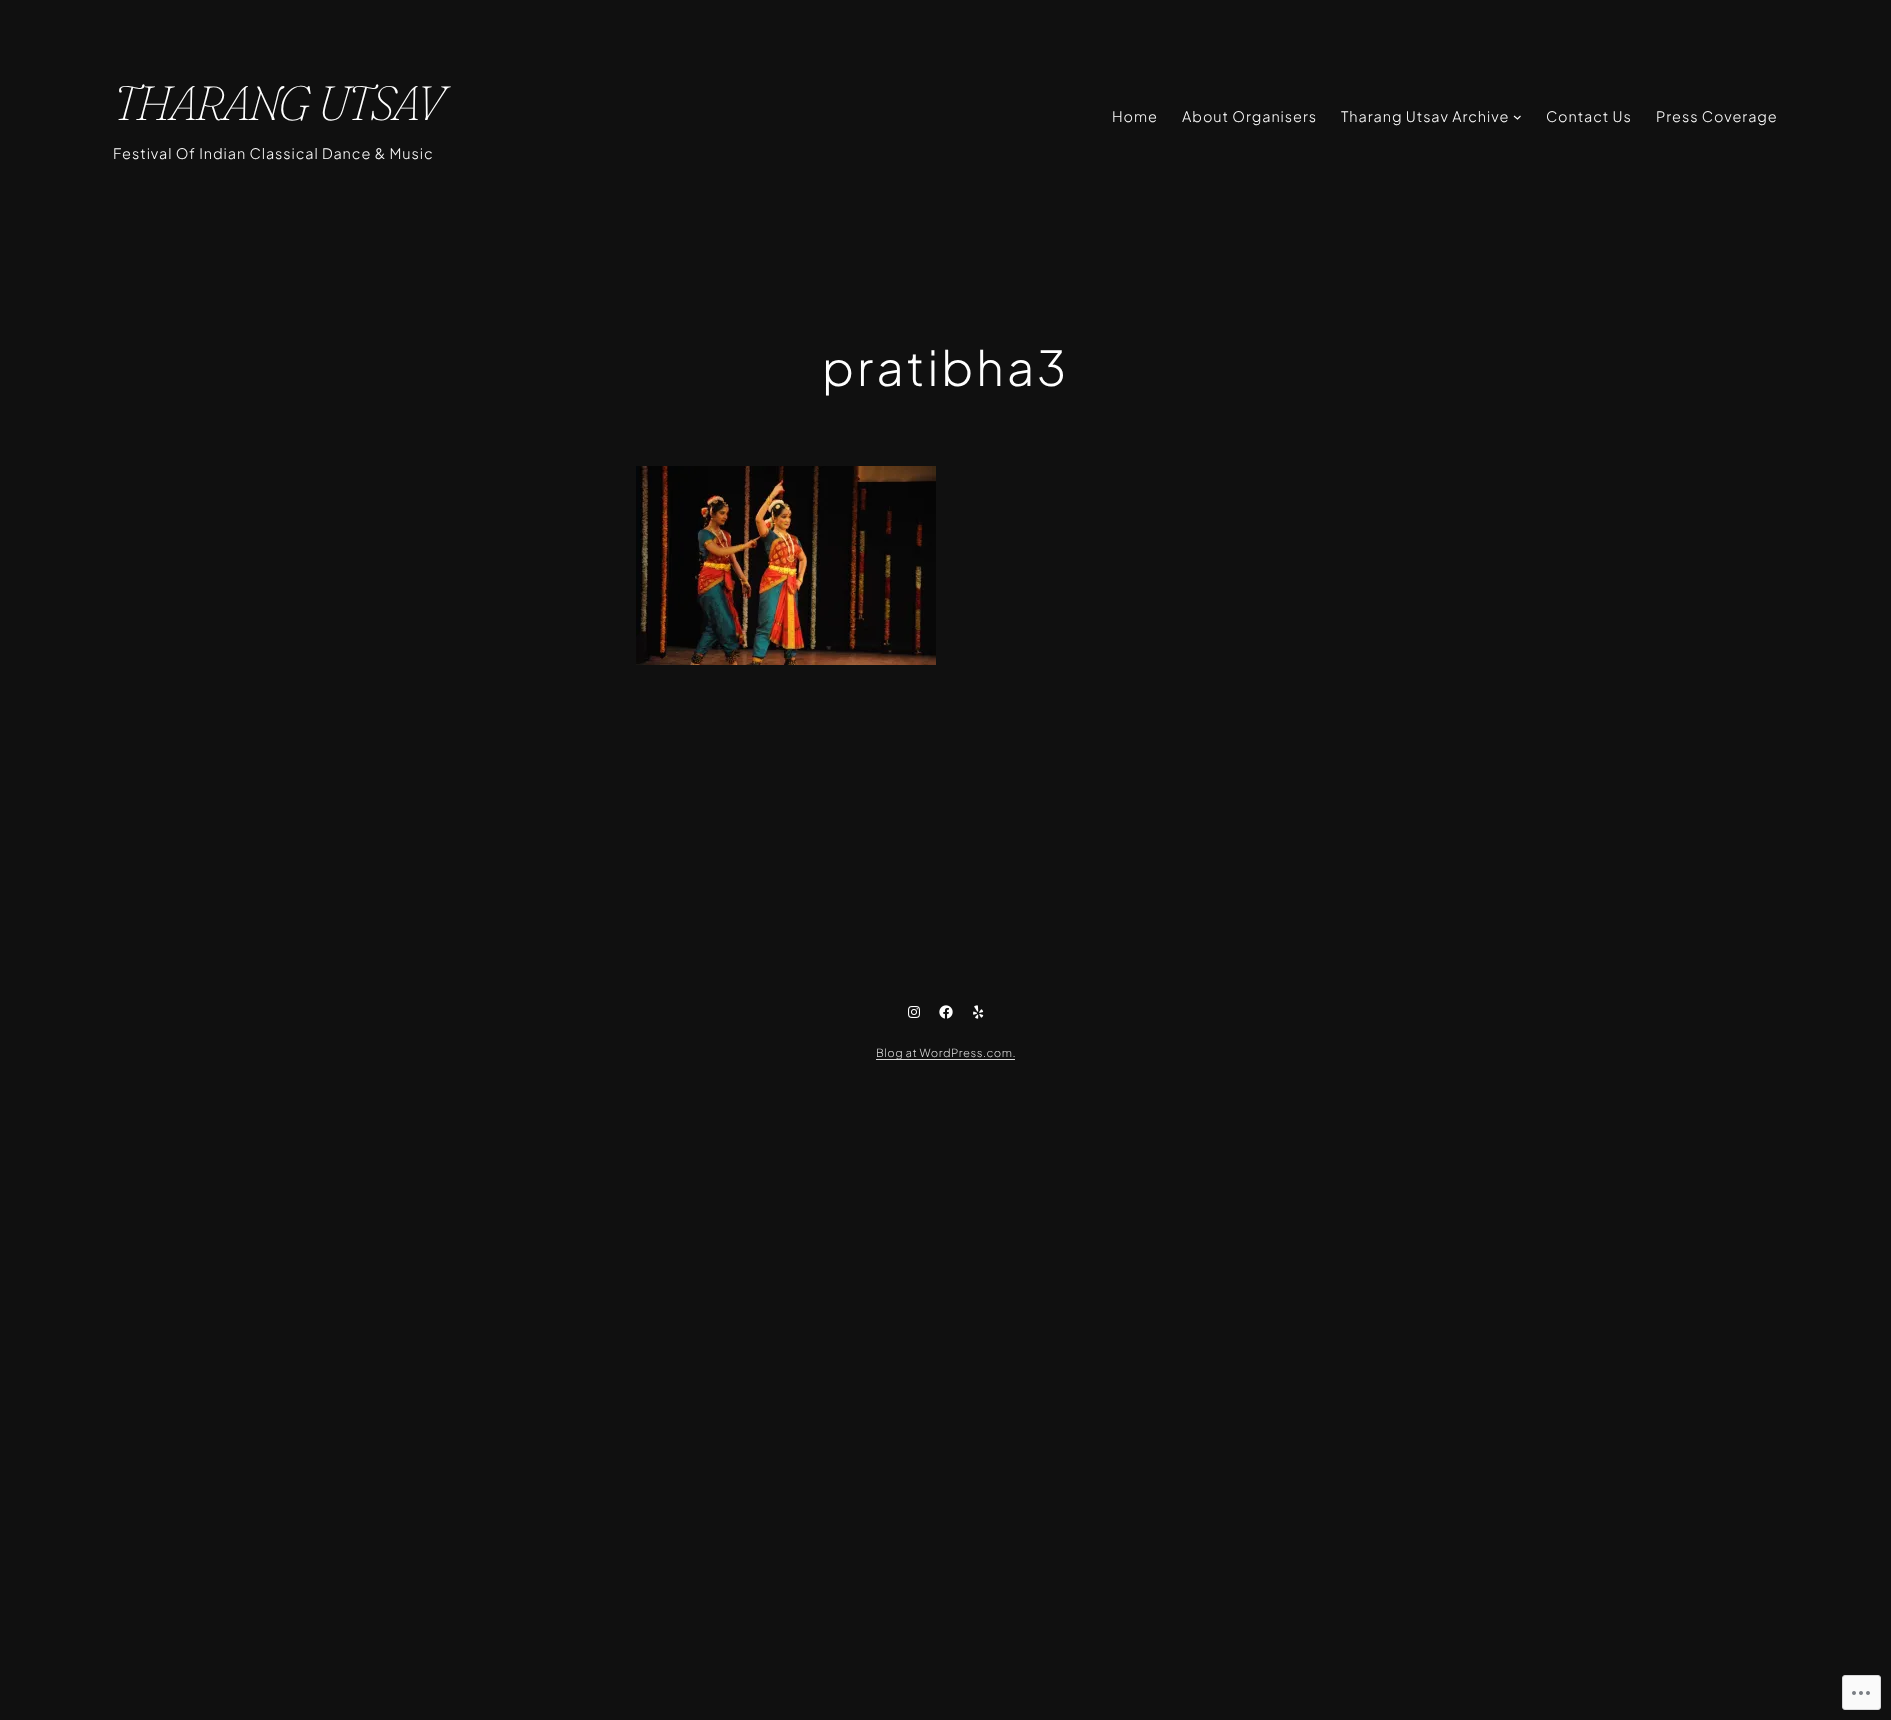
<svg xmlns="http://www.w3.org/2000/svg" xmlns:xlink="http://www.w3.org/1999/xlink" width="1891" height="1720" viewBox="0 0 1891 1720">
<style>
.cls-1{font:italic 100 48px Fraunces;letter-spacing:-2.9px;fill:#ffffff}
.cls-2{font:300 14.4px Plus Jakarta Sans;letter-spacing:0.95px;fill:#ffffff}
.cls-3{font:300 48px Plus Jakarta Sans;letter-spacing:2.9px;fill:#ffffff}
.cls-4{font:300 11.25px Plus Jakarta Sans;letter-spacing:0.5px;fill:#dadada}
</style>
<rect width="100%" height="100%" fill="#101010"/>
<path fill="none" stroke="#ffffff" stroke-width="1.1" d="M1514 116L1517.5 119L1520.5 116"/>
<image xlink:href="image0.png" x="636" y="466" width="300" height="199"/>
<image xlink:href="image1.png" x="908" y="1006" width="12" height="12"/>
<image xlink:href="image2.png" x="939" y="1005" width="14" height="14"/>
<image xlink:href="image3.png" x="973" y="1005" width="11" height="14"/>
<rect fill="#dadada" x="876" y="1059" width="139" height="1"/>
<rect fill="#fafafa" stroke="#d8d8da" x="1842.5" y="1675.5" width="38" height="34" rx="2.5"/>
<image xlink:href="image4.png" x="1852" y="1691" width="18" height="4"/>
<text class="cls-1" x="113" y="120" word-spacing="3">THARANG UTSAV</text>
<text class="cls-2" x="113" y="159">Festival Of Indian Classical Dance &amp; Music</text>
<text class="cls-2" x="1112" y="122">Home</text>
<text class="cls-2" x="1182" y="122">About Organisers</text>
<text class="cls-2" x="1341" y="122">Tharang Utsav Archive</text>
<text class="cls-2" x="1546" y="122">Contact Us</text>
<text class="cls-2" x="1656" y="122">Press Coverage</text>
<text class="cls-3" x="822" y="386">pratibha3</text>
<text class="cls-4" x="876" y="1057">Blog at WordPress.com.</text>
</svg>
